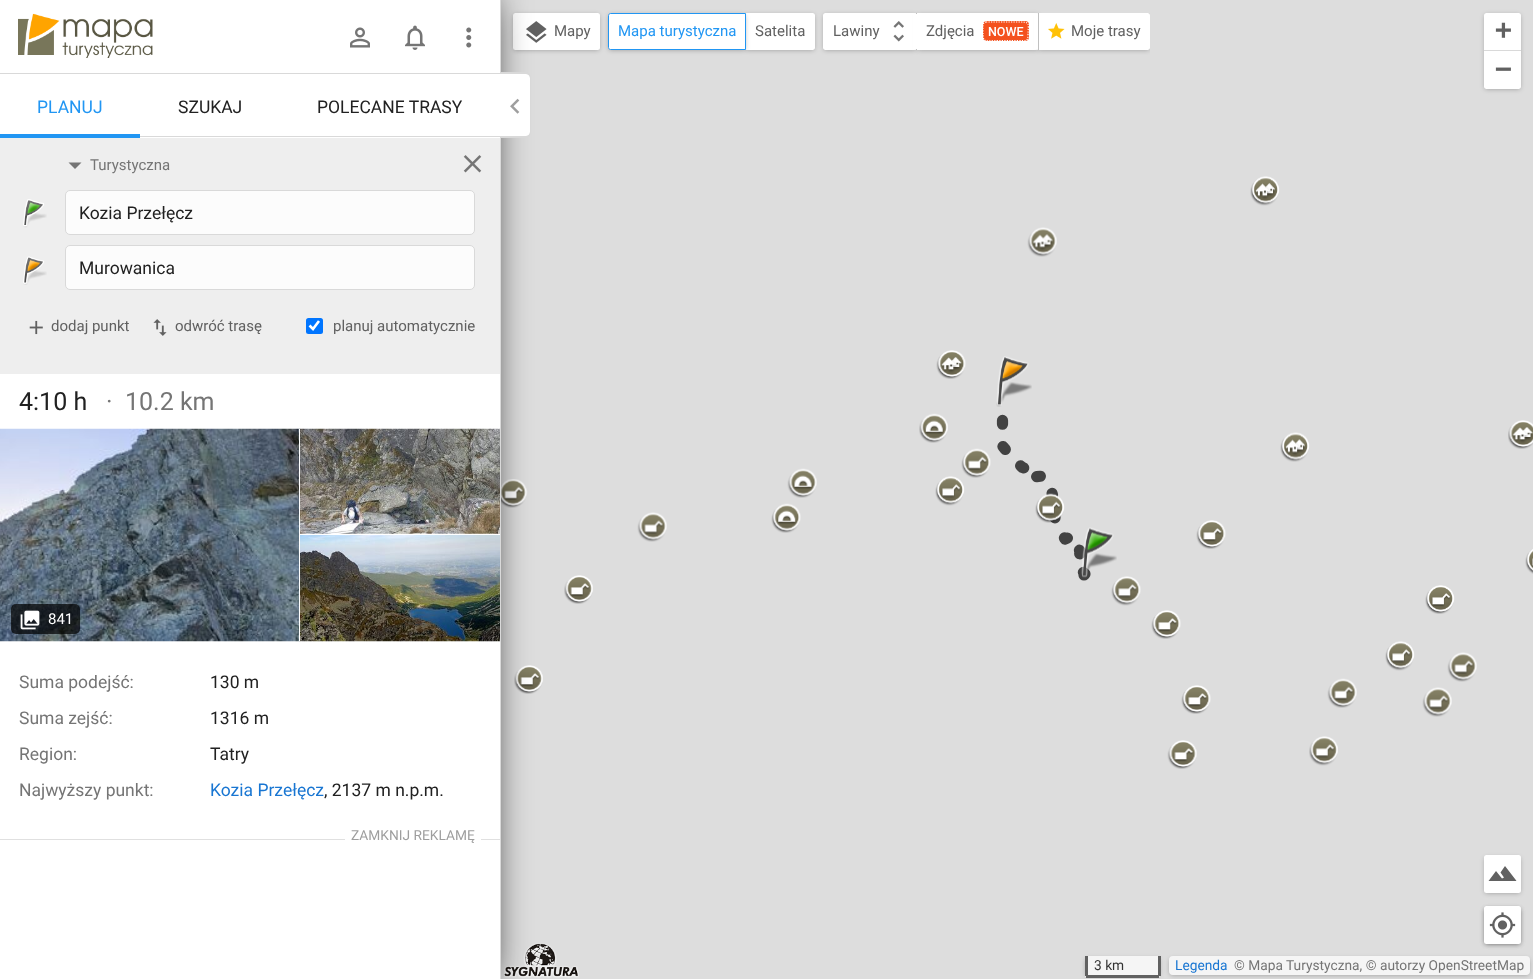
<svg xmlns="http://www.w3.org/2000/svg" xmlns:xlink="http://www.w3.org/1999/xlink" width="1533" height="979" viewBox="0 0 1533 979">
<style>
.cls-1{font:17.5px Roboto;fill:#2196f3}
.cls-2{font:17.5px Roboto;fill:#212121}
.cls-3{font:15px Roboto;fill:#757575}
.cls-4{font:15px Roboto;fill:#616161}
.cls-5{font:25px Roboto;fill:#212121}
.cls-6{font:25px Roboto;fill:#757575}
.cls-7{font:15px Roboto;fill:#ffffff}
.cls-8{font:17.5px Roboto;fill:#757575}
.cls-9{font:17.5px Roboto;fill:#1976d2}
.cls-10{font:13.75px Roboto;fill:#9e9e9e}
.cls-11{font:15px Roboto;fill:#2196f3}
.cls-12{font:500 12.5px Roboto;fill:#ffffff}
.cls-13{font:bold 28px DejaVu Sans Mono;fill:#616161}
.cls-14{font:13.75px Roboto;fill:#333333}
.cls-15{font:13.75px Roboto;fill:#1976d2}
.cls-16{font:13.75px Roboto;fill:#757575}
</style>
<defs>
<clipPath id="clip1"><rect x="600" y="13" width="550" height="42"/></clipPath>
<clipPath id="clip2"><path d="M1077 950H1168V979H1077ZM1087.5 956H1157.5C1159 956 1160 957 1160 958.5V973.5C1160 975 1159 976 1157.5 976H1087.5C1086 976 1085 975 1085 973.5V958.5C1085 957 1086 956 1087.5 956Z" clip-rule="evenodd"/></clipPath>
<clipPath id="clip3"><path d="M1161 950H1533V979H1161ZM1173 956H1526C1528 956 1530 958 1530 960V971C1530 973 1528 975 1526 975H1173C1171 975 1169 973 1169 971V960C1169 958 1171 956 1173 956Z" clip-rule="evenodd"/></clipPath>
</defs>
<rect width="100%" height="100%" fill="#dddddd"/>
<rect fill="#000000" fill-opacity="0.3" filter="blur(2.5px)" x="514" y="15" width="85" height="35" rx="1"/>
<rect fill="#ffffff" x="513" y="13" width="87" height="37" rx="2.5"/>
<image xlink:href="image14.png" x="526" y="21" width="21" height="22"/>
<image xlink:href="image17.png" x="504" y="943" width="75" height="35"/>
<image xlink:href="image27.png" x="501" y="479" width="27" height="29"/>
<image xlink:href="image36.png" x="514" y="665" width="29" height="29"/>
<rect fill="#000000" filter="blur(19px)" x="-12" y="0" width="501" height="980"/>
<rect fill="#ffffff" x="0" y="0" width="500" height="979"/>
<rect fill="#d9d9d9" x="500" y="0" width="1" height="979"/>
<rect fill="#d9d9d9" x="0" y="73" width="500" height="1"/>
<image xlink:href="image0.png" x="18" y="13" width="135" height="45"/>
<image xlink:href="image1.png" x="350" y="27" width="20" height="21"/>
<image xlink:href="image2.png" x="405" y="25" width="20" height="25"/>
<image xlink:href="image3.png" x="466" y="27" width="6" height="21"/>
<rect fill="#d9d9d9" x="140" y="136" width="360" height="1"/>
<rect fill="#2196f3" x="0" y="134" width="140" height="4"/>
<rect fill="#eeeeee" x="0" y="138" width="500" height="236"/>
<path fill="#757575" d="M68.5 162.5H81.5L75 169Z"/>
<image xlink:href="image4.png" x="463" y="155" width="19" height="18"/>
<image xlink:href="image5.png" x="23" y="199" width="24" height="29"/>
<rect fill="#fcfcfc" stroke="#d9d9d9" x="65.5" y="190.5" width="409" height="44" rx="4.5"/>
<rect fill="#fcfcfc" stroke="#d9d9d9" x="65.5" y="245.5" width="409" height="44" rx="4.5"/>
<image xlink:href="image6.png" x="23" y="256" width="24" height="29"/>
<image xlink:href="image7.png" x="29" y="320" width="14" height="15"/>
<image xlink:href="image8.png" x="153" y="319" width="14" height="17"/>
<rect fill="#0075ff" x="306" y="318" width="17" height="16" rx="2.5"/>
<path fill="none" stroke="#ffffff" stroke-width="2.6" d="M309.5 325.5L313 329L319 321"/>
<image xlink:href="image9.png" x="0" y="428" width="300" height="214"/>
<rect fill="#ffffff" x="299" y="429" width="1" height="212"/>
<image xlink:href="image10.png" x="300" y="428" width="200" height="106"/>
<rect fill="#000000" fill-opacity="0.7" x="11" y="604" width="69" height="30" rx="5"/>
<image xlink:href="image11.png" x="20" y="610" width="20" height="20"/>
<image xlink:href="image12.png" x="300" y="535" width="200" height="107"/>
<path fill="#ffffff" d="M500 74H526C528 74 530 76 530 78V132C530 134 528 136 526 136H500Z"/>
<path fill="#d9d9d9" fill-rule="evenodd" d="M500 72H526C529 72 531 75 531 78V132C531 135 529 138 526 138H500ZM500 74H526C528 74 530 75 530 78V132C530 135 528 136 526 136H500Z"/>
<image xlink:href="image13.png" x="510" y="98" width="10" height="16"/>
<rect fill="#e0e0e0" x="0" y="839" width="500" height="1"/>
<rect fill="#ffffff" x="345" y="839" width="136" height="1"/>
<rect fill="#000000" fill-opacity="0.3" filter="blur(2.5px)" x="746" y="15" width="68" height="35" rx="1"/>
<path fill="#ffffff" d="M745 13H812.5C814 13 815 14 815 15.5V47.5C815 49 814 50 812.5 50H745Z"/>
<rect fill="#000000" fill-opacity="0.3" filter="blur(2.5px)" x="609" y="15" width="136" height="35" rx="1"/>
<path fill="#ffffff" stroke="#2196f3" d="M610.5 13.5H745.5V49.5H610.5C609.5 49.5 608.5 48.5 608.5 47.5V15.5C608.5 14.5 609.5 13.5 610.5 13.5Z"/>
<rect fill="#000000" fill-opacity="0.3" filter="blur(2.5px)" x="824" y="15" width="92" height="35" rx="1"/>
<path fill="#ffffff" d="M825.5 13H918V50H825.5C824 50 823 49 823 47.5V15.5C823 14 824 13 825.5 13Z"/>
<rect fill="#000000" fill-opacity="0.3" filter="blur(2.5px)" x="918" y="15" width="120" height="35"/>
<rect fill="#c0c0c0" x="916" y="13" width="1" height="37"/>
<image xlink:href="image15.png" x="893" y="21" width="11" height="21"/>
<rect fill="#ffffff" x="913" y="14" width="4" height="35"/>
<rect fill="#ffffff" x="917" y="13" width="121" height="37"/>
<rect fill="#f4511e" x="983" y="21" width="46" height="20" rx="4"/>
<path fill="none" stroke="#ffffff" stroke-width="1.2" stroke-dasharray="1.25 1.25" d="M986 22H1018.5C1031 22 1028 23 1028 35.5C1028 42 1025 40.5 1018.5 40.5H999C984.5 40.5 983 44 983 31C983 28.5 982 22 986 22Z"/>
<g clip-path="url(#clip1)">
<rect fill="#000000" fill-opacity="0.3" filter="blur(2.5px)" x="1039" y="15" width="110" height="35" rx="1"/>
</g>
<rect fill="#ffffff" x="1034" y="14" width="4" height="35"/>
<path fill="#ffffff" d="M1038 13H1147.5C1149 13 1150 14 1150 15.5V47.5C1150 49 1149 50 1147.5 50H1038Z"/>
<rect fill="#c0c0c0" x="1038" y="13" width="1" height="37"/>
<image xlink:href="image16.png" x="1048" y="23" width="17" height="16"/>
<rect fill="#000000" fill-opacity="0.3" filter="blur(2.5px)" x="1485" y="15" width="35" height="74" rx="1"/>
<path fill="#ffffff" d="M1486.5 13H1518.5C1520 13 1521 14 1521 15.5V51H1484V15.5C1484 14 1485 13 1486.5 13Z"/>
<rect fill="#d9d9d9" x="1484" y="50" width="37" height="1"/>
<path fill="#ffffff" d="M1484 51H1521V86.5C1521 88 1520 89 1518.5 89H1486.5C1485 89 1484 88 1484 86.5Z"/>
<rect fill="#000000" fill-opacity="0.3" filter="blur(2.5px)" x="1485" y="909" width="35" height="35" rx="1"/>
<rect fill="#000000" fill-opacity="0.3" filter="blur(2.5px)" x="1485" y="909" width="35" height="35" rx="1"/>
<rect fill="#ffffff" x="1484" y="906" width="37" height="38" rx="2.5"/>
<image xlink:href="image18.png" x="1489" y="912" width="27" height="26"/>
<g clip-path="url(#clip2)">
<rect fill="#000000" fill-opacity="0.3" filter="blur(2.5px)" x="1086" y="959" width="73" height="17" rx="1"/>
</g>
<path fill="#ffffff" fill-opacity="0.7" d="M1085 956H1160V975.5C1160 977 1159 978 1157.5 978H1087.5C1086 978 1085 977 1085 975.5Z"/>
<rect fill="#616161" x="1158" y="956" width="3" height="20"/>
<rect fill="#616161" x="1086" y="975" width="73" height="3"/>
<rect fill="#616161" x="1085" y="956" width="3" height="20"/>
<g clip-path="url(#clip3)">
<rect fill="#000000" fill-opacity="0.3" filter="blur(2.5px)" x="1170" y="959" width="359" height="16" rx="2.5"/>
</g>
<rect fill="#ffffff" fill-opacity="0.7" x="1169" y="956" width="361" height="19" rx="4"/>
<image xlink:href="image19.png" x="1250" y="176" width="30" height="30"/>
<image xlink:href="image20.png" x="1027" y="227" width="30" height="30"/>
<image xlink:href="image21.png" x="936" y="350" width="30" height="29"/>
<image xlink:href="image22.png" x="996" y="356" width="36" height="51"/>
<image xlink:href="image23.png" x="919" y="413" width="29" height="30"/>
<image xlink:href="image24.png" x="961" y="448" width="30" height="30"/>
<image xlink:href="image25.png" x="1280" y="432" width="30" height="30"/>
<image xlink:href="image26.png" x="1508" y="420" width="25" height="29"/>
<image xlink:href="image28.png" x="637" y="512" width="30" height="30"/>
<image xlink:href="image29.png" x="771" y="503" width="30" height="30"/>
<image xlink:href="image30.png" x="787" y="468" width="30" height="30"/>
<image xlink:href="image31.png" x="935" y="476" width="30" height="30"/>
<path fill="none" stroke="#424242" stroke-width="11.2" stroke-linecap="round" stroke-linejoin="round" stroke-dasharray="3.75 22.5" d="M1084 575L1085 574L1081 570L1084 567.5L1079 560L1080 551L1074 542.5L1075 539L1072.5 536L1065 539L1055 521V515L1047.5 511L1049 502.5L1052.5 495L1050 485L1042.5 476L1029 477.5L1025 471L1027.5 469L1022.5 467.5L1014 460L1002.5 446V411L999 404"/>
<image xlink:href="image32.png" x="1035" y="493" width="30" height="30"/>
<image xlink:href="image37.png" x="1111" y="576" width="30" height="30"/>
<image xlink:href="image33.png" x="1081" y="527" width="36" height="51"/>
<image xlink:href="image34.png" x="1196" y="520" width="30" height="29"/>
<image xlink:href="image35.png" x="1525" y="549" width="8" height="25"/>
<image xlink:href="image36.png" x="564" y="575" width="29" height="29"/>
<image xlink:href="image38.png" x="1425" y="585" width="30" height="29"/>
<image xlink:href="image34.png" x="1151" y="610" width="30" height="29"/>
<image xlink:href="image34.png" x="1181" y="685" width="30" height="29"/>
<image xlink:href="image39.png" x="1327" y="678" width="30" height="30"/>
<image xlink:href="image31.png" x="1385" y="641" width="30" height="30"/>
<image xlink:href="image28.png" x="1422" y="687" width="30" height="30"/>
<image xlink:href="image28.png" x="1447" y="652" width="30" height="30"/>
<image xlink:href="image40.png" x="1167" y="740" width="30" height="29"/>
<image xlink:href="image41.png" x="1309" y="736" width="29" height="30"/>
<rect fill="#000000" fill-opacity="0.3" filter="blur(2.5px)" x="1485" y="858" width="35" height="35" rx="1"/>
<rect fill="#ffffff" x="1484" y="855" width="37" height="38" rx="2.5"/>
<path fill="#616161" d="M1505 866L1516.5 881H1488.5L1496 871L1502 878.5L1504 877.5L1500.5 872.5Z"/>
<text class="cls-1" x="37" y="113">PLANUJ</text>
<text class="cls-2" x="178" y="113">SZUKAJ</text>
<text class="cls-2" x="317" y="113">POLECANE TRASY</text>
<text class="cls-3" x="90" y="170">Turystyczna</text>
<text class="cls-2" x="79" y="219">Kozia Przełęcz</text>
<text class="cls-2" x="79" y="274">Murowanica</text>
<text class="cls-4" x="51" y="331">dodaj punkt</text>
<text class="cls-4" x="175" y="331">odwróć trasę</text>
<text class="cls-4" x="333" y="331">planuj automatycznie</text>
<text class="cls-5" x="19" y="410">4:10 h</text>
<text class="cls-6" x="106" y="410">·</text>
<text class="cls-6" x="125" y="410">10.2 km</text>
<text class="cls-7" x="48" y="624">841</text>
<text class="cls-8" x="19" y="688">Suma podejść:</text>
<text class="cls-2" x="210" y="688">130 m</text>
<text class="cls-8" x="19" y="724">Suma zejść:</text>
<text class="cls-2" x="210" y="724">1316 m</text>
<text class="cls-8" x="19" y="760">Region:</text>
<text class="cls-2" x="210" y="760">Tatry</text>
<text class="cls-8" x="19" y="796">Najwyższy punkt:</text>
<text class="cls-9" x="210" y="796">Kozia Przełęcz</text>
<text class="cls-2" x="324" y="796">, 2137 m n.p.m.</text>
<text class="cls-10" x="351" y="840">ZAMKNIJ REKLAMĘ</text>
<text class="cls-4" x="554" y="36">Mapy</text>
<text class="cls-11" x="618" y="36">Mapa turystyczna</text>
<text class="cls-4" x="755" y="36">Satelita</text>
<text class="cls-4" x="833" y="36">Lawiny</text>
<text class="cls-4" x="926" y="36">Zdjęcia</text>
<text class="cls-12" x="988" y="36">NOWE</text>
<text class="cls-4" x="1071" y="36">Moje trasy</text>
<text class="cls-13"><tspan x="1495" y="39">+</tspan><tspan x="1495" y="78">−</tspan></text>
<text class="cls-14" x="1094" y="970">3 km</text>
<text class="cls-15" x="1175" y="970">Legenda</text>
<text class="cls-16" x="1234" y="970">© Mapa Turystyczna, © autorzy OpenStreetMap</text>
</svg>
